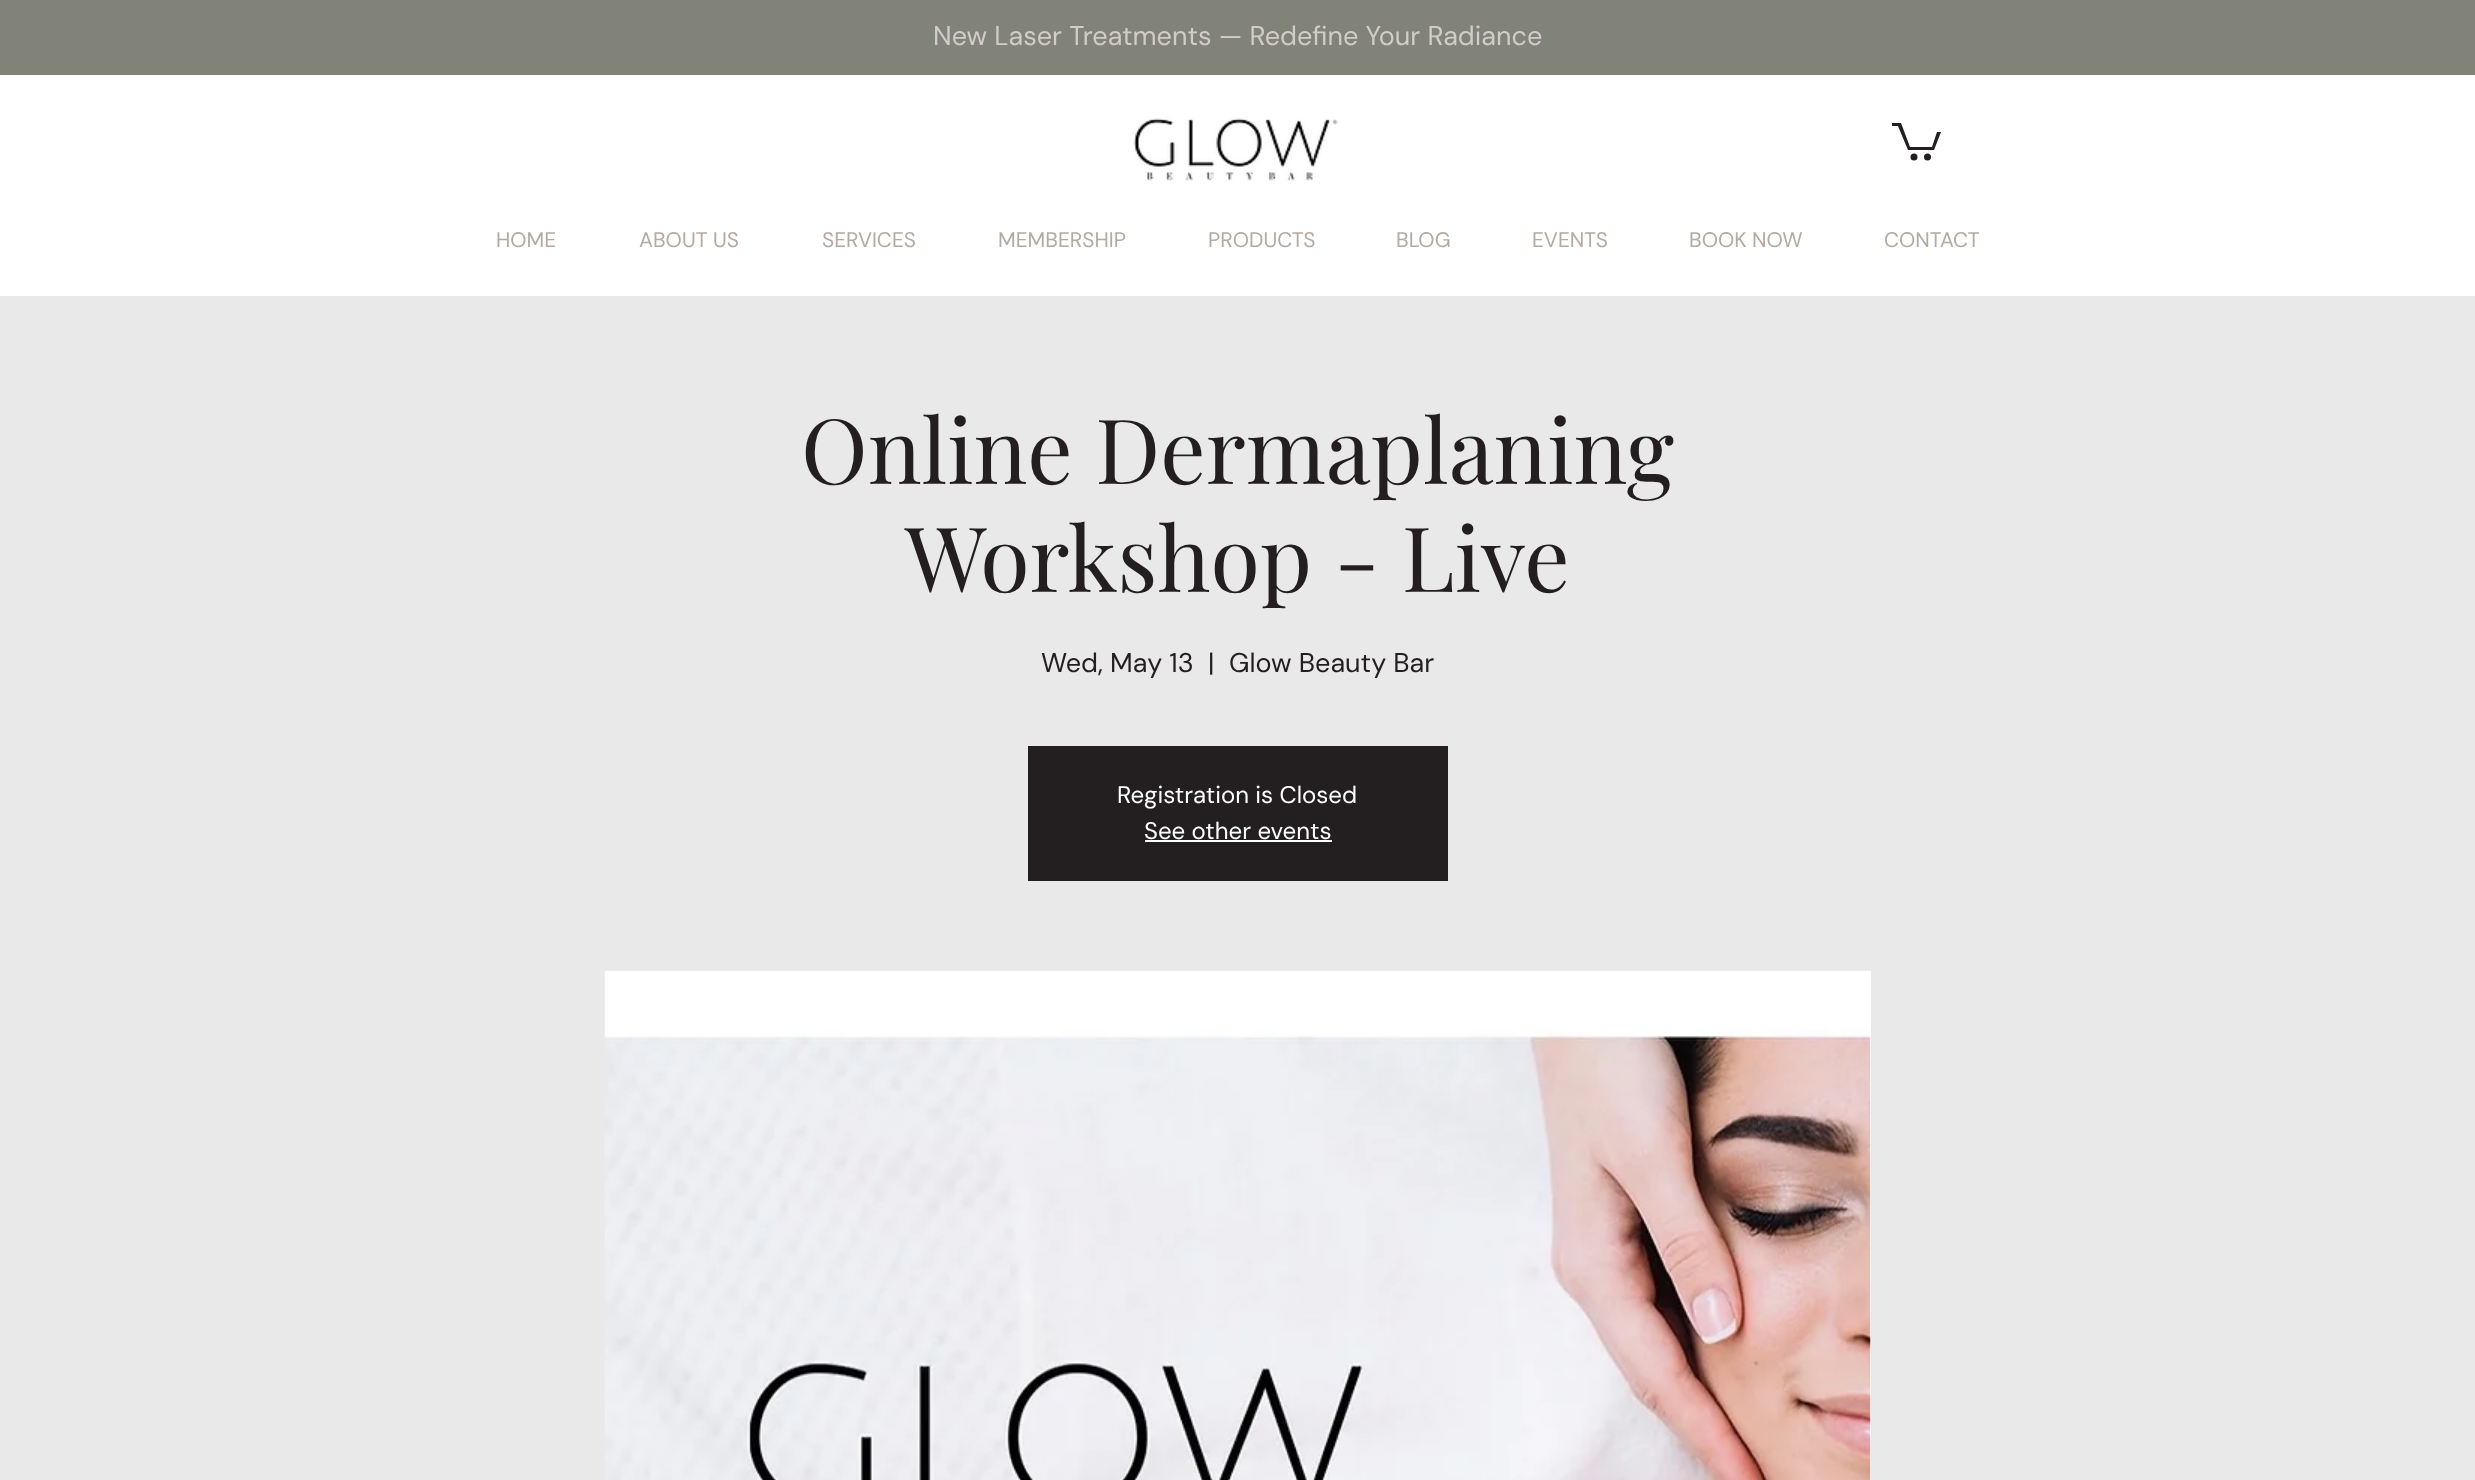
<svg xmlns="http://www.w3.org/2000/svg" xmlns:xlink="http://www.w3.org/1999/xlink" width="2475" height="1480" viewBox="0 0 2475 1480">
<style>
.cls-1{font:27px DM Sans;fill:#d1cbc9}
.cls-2{font:21px DM Sans;fill:#b5aaa1}
.cls-3{font:90px Playfair Display;fill:#231f20}
.cls-4{font:27px DM Sans;fill:#231f20}
.cls-5{font:24px DM Sans;fill:#ffffff}
</style>
<rect width="100%" height="100%" fill="#ffffff"/>
<rect fill="#818379" x="0" y="0" width="2475" height="75"/>
<image xlink:href="image0.png" x="1133" y="117" width="205" height="64"/>
<path fill="#231f20" d="M1941 132L1934 150H1908L1898 126H1892V123H1901L1910 147H1932L1937 132"/>
<circle fill="#231f20" cx="1927.5" cy="157" r="3.5"/>
<circle fill="#231f20" cx="1914" cy="157" r="3.5"/>
<rect fill="#eae9ea" x="0" y="296" width="2475" height="1184"/>
<rect fill="#231f20" x="1028" y="746" width="420" height="135"/>
<rect fill="#ffffff" x="1145" y="840" width="187" height="2"/>
<rect fill="#ffffff" x="1870" y="971" width="1" height="509"/>
<image xlink:href="image1.png" x="604" y="970" width="1267" height="510"/>
<text class="cls-1" x="933" y="45">New Laser Treatments — Redefine Your Radiance</text>
<text class="cls-2" x="496" y="247">HOME</text>
<text class="cls-2" x="639" y="247">ABOUT US</text>
<text class="cls-2" x="822" y="247">SERVICES</text>
<text class="cls-2" x="998" y="247">MEMBERSHIP</text>
<text class="cls-2" x="1208" y="247">PRODUCTS</text>
<text class="cls-2" x="1396" y="247">BLOG</text>
<text class="cls-2" x="1532" y="247">EVENTS</text>
<text class="cls-2" x="1689" y="247">BOOK NOW</text>
<text class="cls-2" x="1884" y="247">CONTACT</text>
<text class="cls-3" x="801" y="484">Online Dermaplaning</text>
<text class="cls-3" x="905" y="592">Workshop - Live</text>
<text class="cls-4" x="1041" y="672">Wed, May 13</text>
<text class="cls-4" x="1208" y="672">|</text>
<text class="cls-4" x="1229" y="672">Glow Beauty Bar</text>
<text class="cls-5" x="1117" y="803">Registration is Closed</text>
<text class="cls-5" x="1144" y="839">See other events</text>
</svg>
